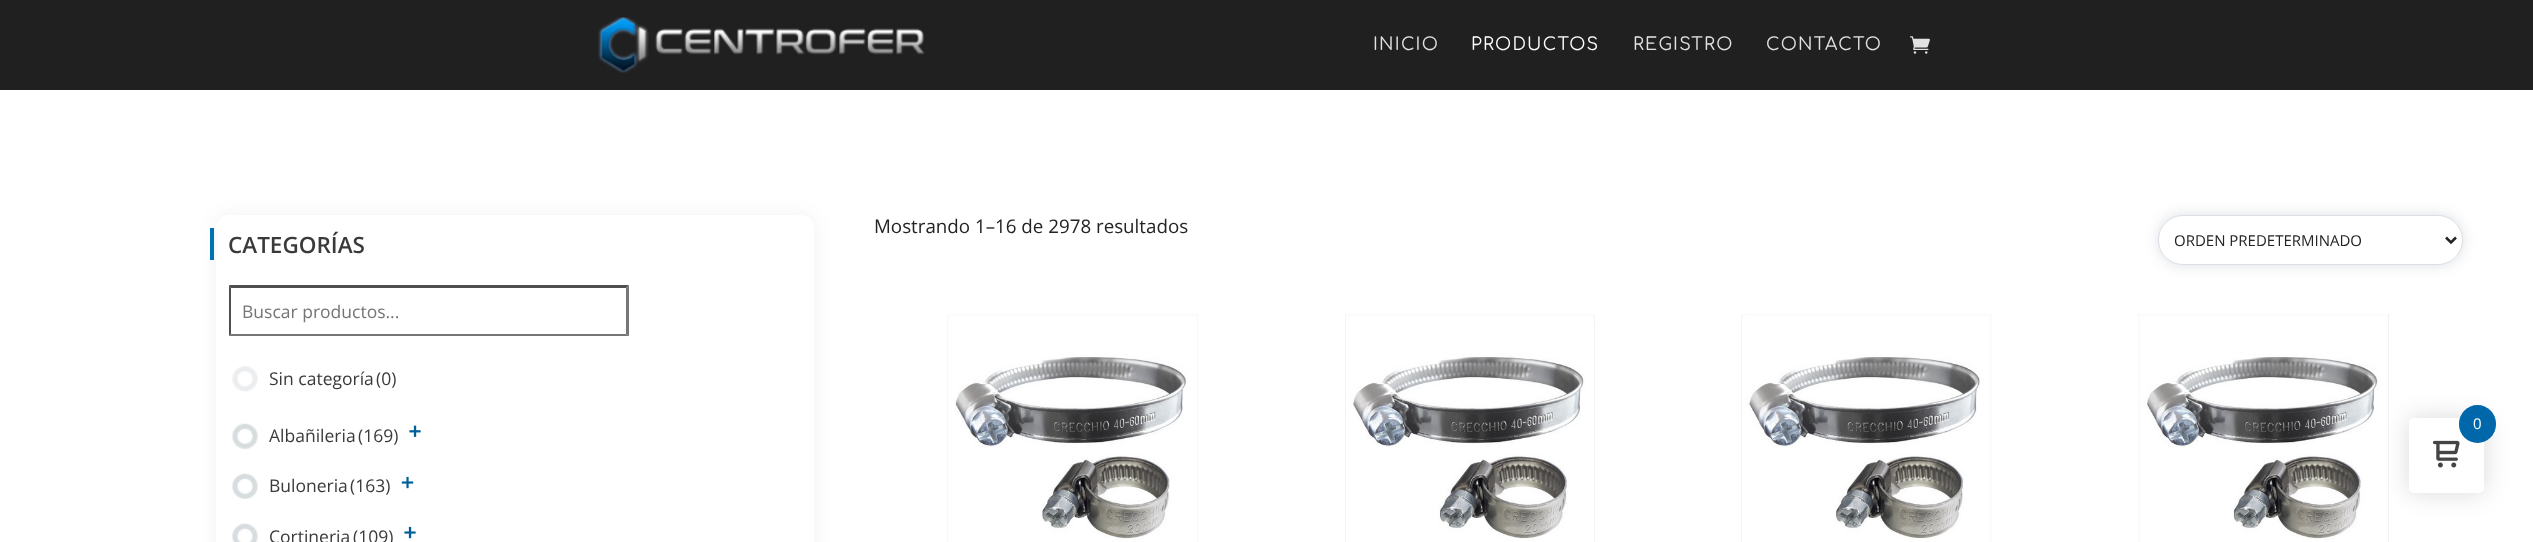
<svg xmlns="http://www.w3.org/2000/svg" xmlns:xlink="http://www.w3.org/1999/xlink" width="2533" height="542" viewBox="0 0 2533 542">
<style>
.cls-1{font:17.5px Comfortaa;letter-spacing:1.25px;fill:#e2e2e2}
.cls-2{font:17.5px Comfortaa;letter-spacing:1.25px;fill:#ffffff}
.cls-3{font:600 22.5px Open Sans;fill:#3a3a3a}
.cls-4{font:17.5px Open Sans;fill:#757575}
.cls-5{font:17.5px Open Sans;fill:#3a3a3a}
.cls-6{font:18.75px Open Sans;fill:#232323}
.cls-7{font:15px Open Sans;fill:#232323}
.cls-8{font:15px Open Sans;fill:#ffffff}
</style>
<rect width="100%" height="100%" fill="#ffffff"/>
<rect fill="#202020" x="0" y="0" width="2533" height="90"/>
<image xlink:href="image0.png" x="598" y="17" width="327" height="56"/>
<image xlink:href="image1.png" x="1910" y="36" width="20" height="18"/>
<rect fill="#283d58" fill-opacity="0.07" filter="blur(9.5px)" x="216" y="215" width="598" height="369" rx="13"/>
<rect fill="#ffffff" x="216" y="215" width="598" height="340" rx="13"/>
<rect fill="#0072b2" x="210" y="228" width="4" height="32"/>
<path fill="#4f4f4f" d="M229 285H629L626 288H231Z"/>
<path fill="#767676" d="M629 285V336L626 334V288Z"/>
<path fill="#767676" d="M629 336H229L231 334H626Z"/>
<path fill="#4f4f4f" d="M229 336V285L231 288V334Z"/>
<image xlink:href="image2.png" x="232" y="366" width="26" height="26"/>
<image xlink:href="image3.png" x="232" y="423" width="26" height="26"/>
<image xlink:href="image4.png" x="409" y="425" width="12" height="12"/>
<image xlink:href="image3.png" x="232" y="473" width="26" height="26"/>
<image xlink:href="image5.png" x="401" y="476" width="13" height="13"/>
<image xlink:href="image6.png" x="232" y="523" width="26" height="19"/>
<image xlink:href="image7.png" x="404" y="526" width="12" height="13"/>
<rect fill="#06163a" fill-opacity="0.14" filter="blur(7px)" x="2158" y="215" width="305" height="50" rx="25"/>
<rect fill="#ffffff" x="2158" y="215" width="305" height="50" rx="25"/>
<rect fill="none" stroke="#06163a" stroke-opacity="0.14" x="2158.5" y="215.5" width="304" height="49" rx="24.5"/>
<path fill="none" stroke="#232323" stroke-width="2.5" d="M2446 237.5L2451 242.5L2456 237.5"/>
<image xlink:href="image8.png" x="947" y="314" width="251" height="228"/>
<image xlink:href="image9.png" x="1345" y="314" width="250" height="228"/>
<image xlink:href="image10.png" x="1741" y="314" width="251" height="228"/>
<image xlink:href="image11.png" x="2138" y="314" width="251" height="228"/>
<rect fill="#000000" fill-opacity="0.15" filter="blur(12.5px)" x="2409" y="418" width="75" height="75" rx="5"/>
<rect fill="#ffffff" x="2409" y="418" width="75" height="75" rx="5"/>
<image xlink:href="image12.png" x="2432" y="440" width="28" height="28"/>
<rect fill="#0068aa" x="2459" y="405" width="37" height="38" rx="18.5"/>
<text class="cls-1" x="1373" y="50">INICIO</text>
<text class="cls-2" x="1471" y="50">PRODUCTOS</text>
<text class="cls-1" x="1633" y="50">REGISTRO</text>
<text class="cls-1" x="1766" y="50">CONTACTO</text>
<text class="cls-3" x="228" y="253">CATEGORÍAS</text>
<text class="cls-4" x="242" y="318">Buscar productos...</text>
<text class="cls-5" x="269" y="385">Sin categoría</text>
<text class="cls-5" x="376" y="385">(0)</text>
<text class="cls-5" x="269" y="442">Albañileria</text>
<text class="cls-5" x="358" y="442">(169)</text>
<text class="cls-5" x="269" y="492">Buloneria</text>
<text class="cls-5" x="350" y="492">(163)</text>
<text class="cls-5" x="269" y="543">Cortineria</text>
<text class="cls-5" x="353" y="543">(109)</text>
<text class="cls-6" x="874" y="233">Mostrando 1–16 de 2978 resultados</text>
<text class="cls-7" x="2174" y="246">ORDEN PREDETERMINADO</text>
<text class="cls-8" x="2473" y="429">0</text>
</svg>
